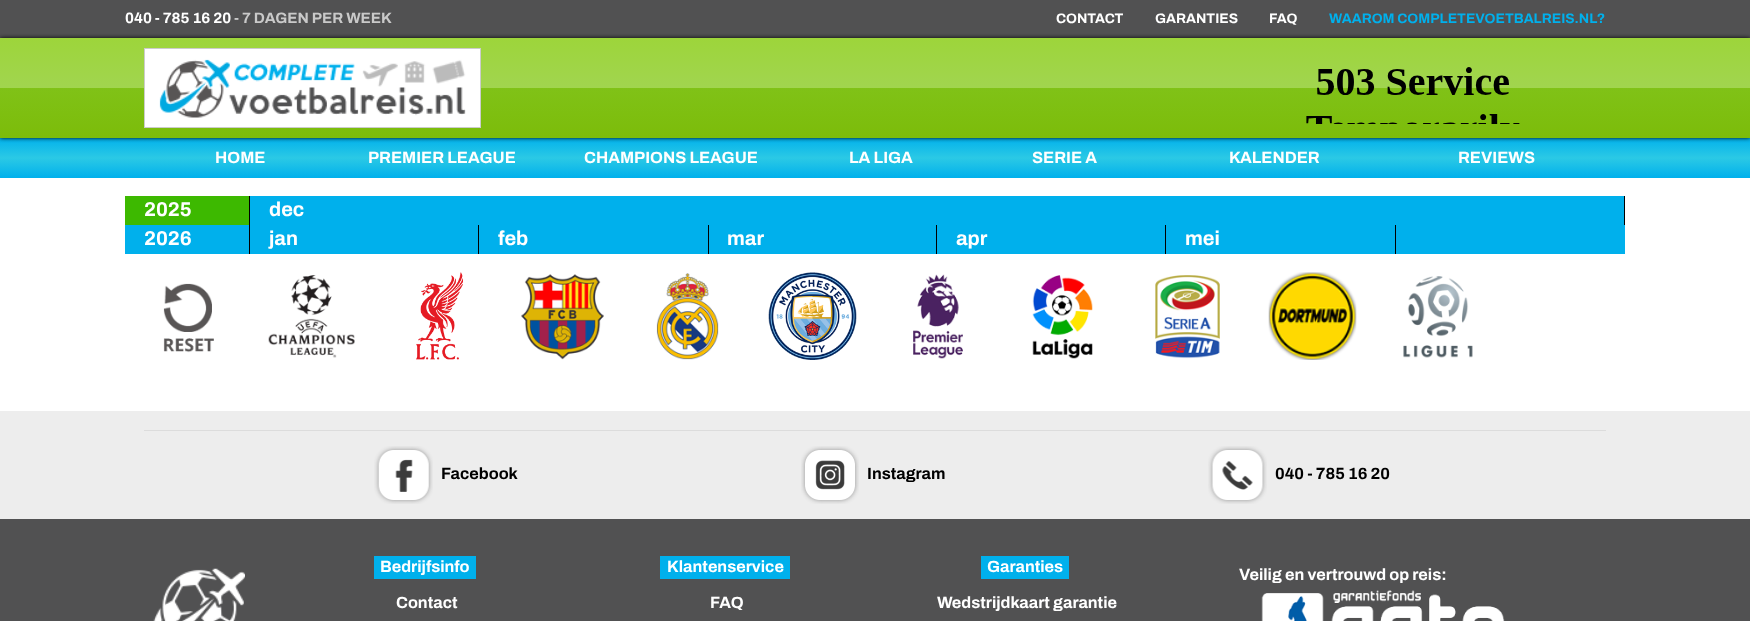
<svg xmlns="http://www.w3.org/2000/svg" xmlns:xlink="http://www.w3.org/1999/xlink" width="1750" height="621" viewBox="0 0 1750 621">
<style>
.cls-1{font:bold 15px Archivo;fill:#ffffff}
.cls-2{font:bold 15px Archivo;fill:#c9c9c9}
.cls-3{font:bold 13.75px Archivo;fill:#ffffff}
.cls-4{font:bold 13.75px Archivo;fill:#00b0ec}
.cls-5{font:bold 16.25px Archivo;fill:#ffffff}
.cls-6{font:bold 20px Archivo;fill:#ffffff}
.cls-7{font:bold 16.25px Archivo;fill:#000000}
</style>
<defs>
<linearGradient id="g1" gradientUnits="userSpaceOnUse" x1="875" y1="137" x2="875" y2="178"><stop offset="0" stop-color="#00b0ec"/><stop offset="0.51" stop-color="#2bc9e5"/><stop offset="1" stop-color="#00b0ec"/></linearGradient>
<linearGradient id="g2" gradientUnits="userSpaceOnUse" x1="875" y1="37" x2="875" y2="138"><stop offset="0" stop-color="#9dd53a"/><stop offset="0.5" stop-color="#a1d54f"/><stop offset="0.51" stop-color="#80c217"/><stop offset="1" stop-color="#7cbc0a"/></linearGradient>
</defs>
<rect width="100%" height="100%" fill="#ffffff"/>
<rect fill="#515152" x="0" y="0" width="1750" height="38"/>
<rect fill="url(#g1)" x="0" y="138" width="1750" height="40"/>
<rect fill="#000000" filter="blur(2px)" x="0" y="38" width="1750" height="100"/>
<rect fill="url(#g2)" x="0" y="38" width="1750" height="100"/>
<rect fill="#ffffff" stroke="#cccccc" x="144.5" y="48.5" width="336" height="79"/>
<image xlink:href="image0.png" x="159" y="59" width="307" height="59"/>
<image xlink:href="image1.png" x="1306" y="67" width="214" height="57"/>
<rect fill="#00b0ec" x="250" y="196" width="1374" height="29"/>
<rect fill="#3db900" x="125" y="196" width="124" height="29"/>
<rect fill="#00b0ec" x="125" y="225" width="1500" height="29"/>
<rect fill="#000000" x="249" y="196" width="1" height="58"/>
<rect fill="#000000" x="1624" y="196" width="1" height="29"/>
<rect fill="#000000" x="478" y="225" width="1" height="29"/>
<rect fill="#000000" x="708" y="225" width="1" height="29"/>
<rect fill="#000000" x="936" y="225" width="1" height="29"/>
<rect fill="#000000" x="1165" y="225" width="1" height="29"/>
<rect fill="#000000" x="1395" y="225" width="1" height="29"/>
<image xlink:href="image2.png" x="163" y="283" width="51" height="70"/>
<image xlink:href="image3.png" x="268" y="275" width="87" height="83"/>
<image xlink:href="image4.png" x="416" y="272" width="47" height="88"/>
<image xlink:href="image5.png" x="521" y="274" width="83" height="86"/>
<image xlink:href="image6.png" x="656" y="273" width="63" height="87"/>
<image xlink:href="image7.png" x="768" y="272" width="89" height="88"/>
<image xlink:href="image8.png" x="913" y="274" width="50" height="85"/>
<image xlink:href="image9.png" x="1032" y="275" width="61" height="84"/>
<image xlink:href="image10.png" x="1155" y="275" width="65" height="84"/>
<image xlink:href="image11.png" x="1268" y="272" width="89" height="88"/>
<image xlink:href="image12.png" x="1403" y="276" width="70" height="82"/>
<rect fill="#ededed" x="0" y="411" width="1750" height="108"/>
<rect fill="#dcdcdc" x="144" y="430" width="1462" height="1"/>
<image xlink:href="image13.png" x="374" y="446" width="59" height="58"/>
<image xlink:href="image14.png" x="801" y="446" width="58" height="58"/>
<image xlink:href="image15.png" x="1208" y="446" width="59" height="58"/>
<rect fill="#515152" x="0" y="519" width="1750" height="102"/>
<image xlink:href="image16.png" x="153" y="568" width="92" height="53"/>
<rect fill="#00b0ec" x="374" y="556" width="102" height="23"/>
<rect fill="#00b0ec" x="660" y="556" width="130" height="23"/>
<rect fill="#00b0ec" x="981" y="556" width="88" height="23"/>
<image xlink:href="image17.png" x="1261" y="590" width="244" height="31"/>
<text class="cls-1" x="125" y="23">040 - 785 16 20</text>
<text class="cls-2" x="234" y="23">- 7 DAGEN PER WEEK</text>
<text class="cls-3" x="1056" y="23">CONTACT</text>
<text class="cls-3" x="1155" y="23">GARANTIES</text>
<text class="cls-3" x="1269" y="23">FAQ</text>
<text class="cls-4" x="1329" y="23">WAAROM COMPLETEVOETBALREIS.NL?</text>
<text class="cls-5" x="215" y="163">HOME</text>
<text class="cls-5" x="368" y="163">PREMIER LEAGUE</text>
<text class="cls-5" x="584" y="163">CHAMPIONS LEAGUE</text>
<text class="cls-5" x="849" y="163">LA LIGA</text>
<text class="cls-5" x="1032" y="163">SERIE A</text>
<text class="cls-5" x="1229" y="163">KALENDER</text>
<text class="cls-5" x="1458" y="163">REVIEWS</text>
<text class="cls-6" x="144" y="216">2025</text>
<text class="cls-6" x="269" y="216">dec</text>
<text class="cls-6" x="144" y="245">2026</text>
<text class="cls-6" x="269" y="245">jan</text>
<text class="cls-6" x="498" y="245">feb</text>
<text class="cls-6" x="727" y="245">mar</text>
<text class="cls-6" x="956" y="245">apr</text>
<text class="cls-6" x="1185" y="245">mei</text>
<text class="cls-7" x="441" y="479">Facebook</text>
<text class="cls-7" x="867" y="479">Instagram</text>
<text class="cls-7" x="1275" y="479">040 - 785 16 20</text>
<text class="cls-5" x="380" y="572">Bedrijfsinfo</text>
<text class="cls-5" x="396" y="608">Contact</text>
<text class="cls-5" x="667" y="572">Klantenservice</text>
<text class="cls-5" x="710" y="608">FAQ</text>
<text class="cls-5" x="987" y="572">Garanties</text>
<text class="cls-5" x="937" y="608">Wedstrijdkaart garantie</text>
<text class="cls-5" x="1239" y="580">Veilig en vertrouwd op reis:</text>
</svg>
